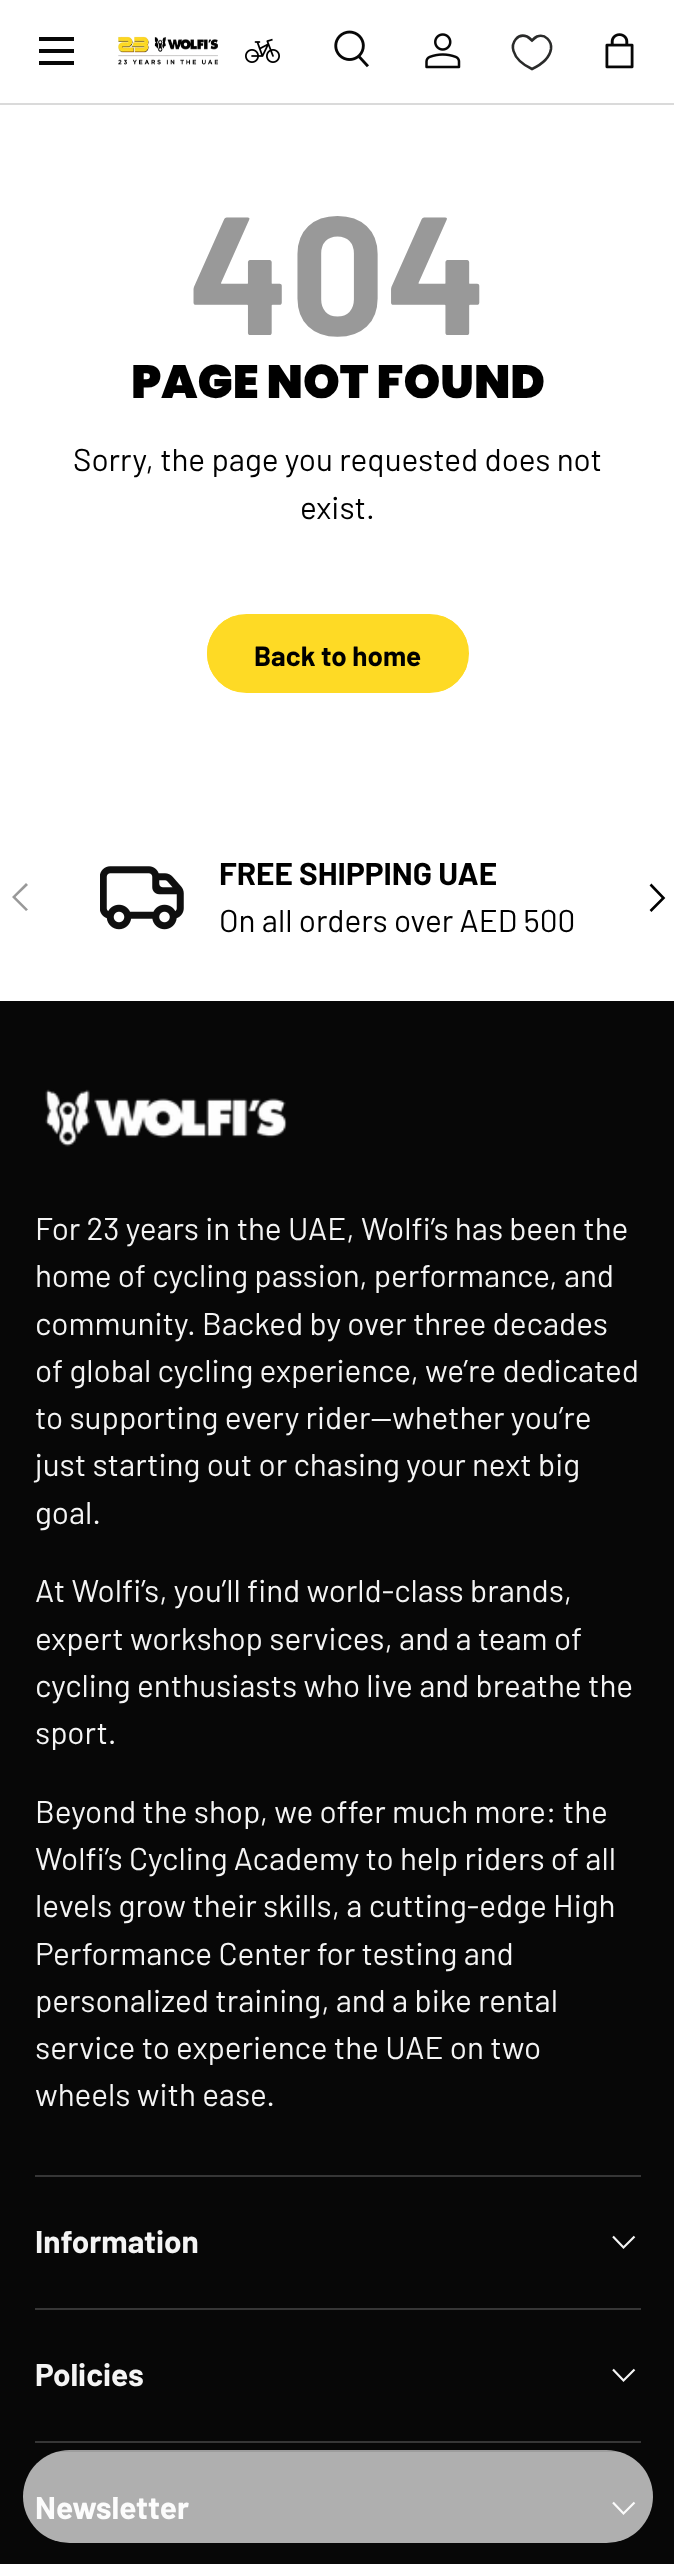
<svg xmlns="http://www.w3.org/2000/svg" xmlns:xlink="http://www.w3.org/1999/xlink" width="674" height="2564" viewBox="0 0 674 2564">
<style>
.cls-1{font:bold 168px Barlow;fill:#999999}
.cls-2{font:900 46.75px Poppins;fill:#000000}
.cls-3{font:31.5px Barlow;fill:#000000}
.cls-4{font:bold 27.75px Barlow;fill:#000000}
.cls-5{font:bold 31.5px Barlow;fill:#000000}
.cls-6{font:31.5px Barlow;fill:#f4f4f4}
.cls-7{font:bold 31.5px Barlow;fill:#f4f4f4}
</style>
<defs>
<clipPath id="clip1"><rect x="207" y="614" width="262" height="79" rx="39.5"/></clipPath>
<linearGradient id="g1" gradientUnits="userSpaceOnUse" x1="-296" y1="560" x2="453" y2="747"><stop offset="0.6" stop-color="#e0c126"/><stop offset="0.6" stop-color="#feda25"/><stop offset="1" stop-color="#feda25"/></linearGradient>
</defs>
<rect width="100%" height="100%" fill="#ffffff"/>
<rect fill="#dadada" x="0" y="103" width="674" height="2"/>
<rect fill="#070707" x="39" y="37" width="35" height="4"/>
<rect fill="#070707" x="39" y="61" width="35" height="4"/>
<rect fill="#070707" x="39" y="49" width="35" height="4"/>
<image xlink:href="image0.png" x="118" y="36" width="100" height="29"/>
<image xlink:href="image1.png" x="245" y="38" width="35" height="25"/>
<image xlink:href="image2.png" x="334" y="30" width="35" height="38"/>
<image xlink:href="image3.png" x="425" y="33" width="36" height="36"/>
<path fill="none" stroke="#2a2b2a" stroke-width="2.6" d="M532 69C524.5 65.5 516 59.5 513.5 51C511 42.5 517.5 33 527 36.5C529 37.5 530.5 39 532 40.5C533.5 39 535 37.5 537 36.5C545 33.5 552 41 551 49C549.5 58.5 540.5 65 532 69Z"/>
<image xlink:href="image4.png" x="605" y="33" width="29" height="36"/>
<g clip-path="url(#clip1)">
<rect fill="url(#g1)" x="207" y="616" width="260" height="75"/>
</g>
<rect fill="none" stroke="#feda25" stroke-width="2" x="208" y="615" width="260" height="77" rx="38.5"/>
<image xlink:href="image5.png" x="100" y="866" width="84" height="64"/>
<path fill="#999999" d="M12 897L26 883L28 885L15.5 897L28 909.5L26 911Z"/>
<path fill="none" stroke="#000000" stroke-width="2.6" d="M650.5 884.5L663.5 898L650.5 911"/>
<rect fill="#070707" x="0" y="1001" width="674" height="1563"/>
<image xlink:href="image6.png" x="45" y="1089" width="242" height="58"/>
<rect fill="#363636" x="35" y="2175" width="606" height="2"/>
<rect fill="#363636" x="35" y="2308" width="606" height="2"/>
<path fill="none" stroke="#f4f4f4" stroke-width="2.2" d="M634.5 2236.5L623.5 2247.5L613 2236.5"/>
<rect fill="#363636" x="35" y="2441" width="606" height="2"/>
<path fill="none" stroke="#f4f4f4" stroke-width="2.2" d="M634.5 2369.5L623.5 2380.5L613 2369.5"/>
<path fill="none" stroke="#f4f4f4" stroke-width="2.2" d="M634.5 2502.5L623.5 2513.5L613 2502.5"/>
<text class="cls-1" x="188" y="335">404</text>
<text class="cls-2" x="131" y="398">PAGE NOT FOUND</text>
<text class="cls-3" x="73" y="471">Sorry, the page you requested does not</text>
<text class="cls-3" x="300" y="519">exist.</text>
<text class="cls-4" x="254" y="666">Back to home</text>
<text class="cls-5" x="219" y="885">FREE SHIPPING UAE</text>
<text class="cls-3" x="219" y="932">On all orders over AED 500</text>
<text class="cls-6"><tspan x="35" y="1240">For 23 years in the UAE, Wolfi’s has been the</tspan><tspan x="35" y="1287">home of cycling passion, performance, and</tspan><tspan x="35" y="1335">community. Backed by over three decades</tspan><tspan x="35" y="1382">of global cycling experience, we’re dedicated</tspan><tspan x="35" y="1429">to supporting every rider—whether you’re</tspan><tspan x="35" y="1476">just starting out or chasing your next big</tspan><tspan x="35" y="1524">goal.</tspan></text>
<text class="cls-6"><tspan x="35" y="1602">At Wolfi’s, you’ll find world-class brands,</tspan><tspan x="35" y="1650">expert workshop services, and a team of</tspan><tspan x="35" y="1697">cycling enthusiasts who live and breathe the</tspan><tspan x="35" y="1744">sport.</tspan></text>
<text class="cls-6"><tspan x="35" y="1823">Beyond the shop, we offer much more: the</tspan><tspan x="35" y="1870">Wolfi’s Cycling Academy to help riders of all</tspan><tspan x="35" y="1917">levels grow their skills, a cutting-edge High</tspan><tspan x="35" y="1965">Performance Center for testing and</tspan><tspan x="35" y="2012">personalized training, and a bike rental</tspan><tspan x="35" y="2059">service to experience the UAE on two</tspan><tspan x="35" y="2106">wheels with ease.</tspan></text>
<text class="cls-7" x="35" y="2253">Information</text>
<text class="cls-7" x="35" y="2386">Policies</text>
<text class="cls-7" x="35" y="2519">Newsletter</text>
<rect fill="#ffffff" fill-opacity="0.68" x="23" y="2450" width="630" height="93" rx="46.5"/>
<rect fill="#000000" fill-opacity="0.1" x="57" y="2450" width="563" height="2"/>
</svg>
